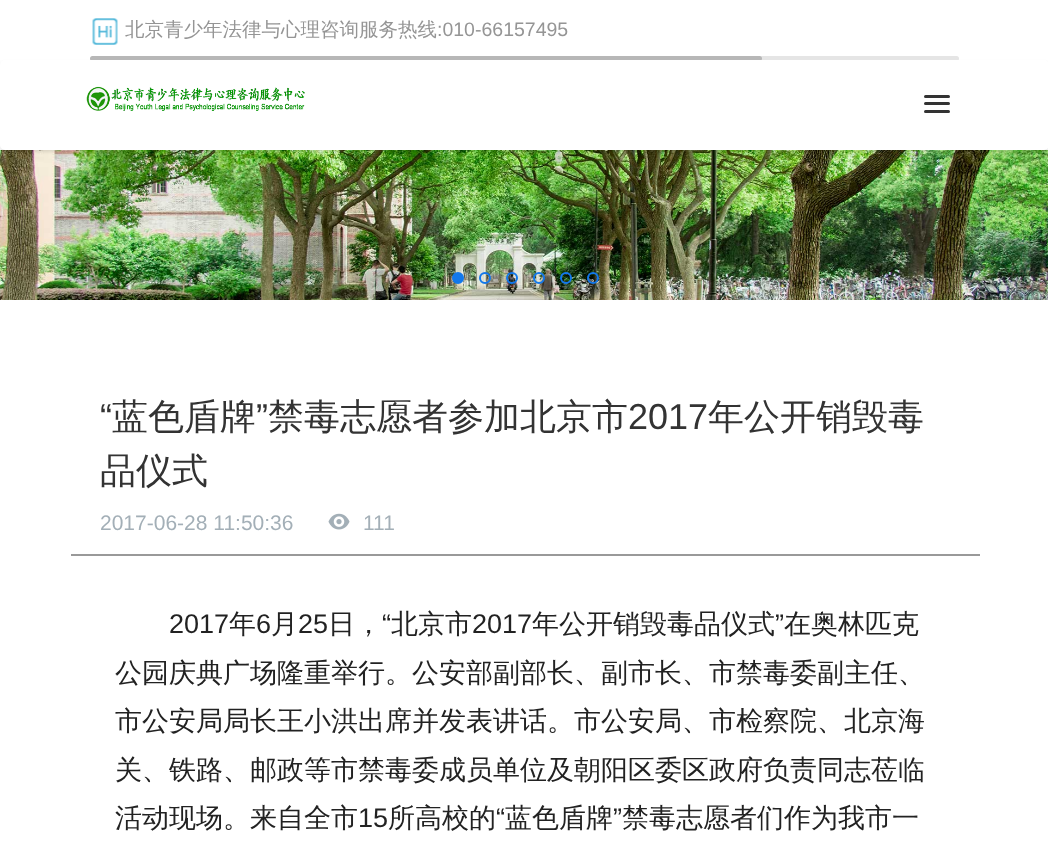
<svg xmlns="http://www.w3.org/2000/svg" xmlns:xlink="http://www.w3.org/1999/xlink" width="1048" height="843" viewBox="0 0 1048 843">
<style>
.cls-1{font:500 19.5px WenQuanYi Zen Hei;fill:#959595}
.cls-2{font:19.5px Liberation Sans;fill:#959595}
.cls-3{font:36px Liberation Sans;fill:#333333}
.cls-4{font:500 36px WenQuanYi Zen Hei;fill:#333333}
.cls-5{font:21px Liberation Sans;fill:#a3afb7}
.cls-6{font:27px Liberation Sans;fill:#222222}
.cls-7{font:500 27px WenQuanYi Zen Hei;fill:#222222}
</style>
<defs>
<clipPath id="clip1"><rect x="90" y="0" width="869" height="60"/></clipPath>
</defs>
<rect width="100%" height="100%" fill="#ffffff"/>
<image xlink:href="image0.png" x="92" y="18" width="26" height="27"/>
<image xlink:href="image2.png" x="0" y="150" width="1048" height="150"/>
<rect fill="#000000" fill-opacity="0.1" filter="blur(1.5px)" x="0" y="62" width="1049" height="90" rx="5"/>
<rect fill="#ffffff" x="0" y="60" width="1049" height="90" rx="5"/>
<g clip-path="url(#clip1)">
<rect fill="#e5e5e5" x="90" y="56" width="869" height="5" rx="2.5"/>
<rect fill="#000000" fill-opacity="0.2" x="90" y="56" width="672" height="5" rx="2.5"/>
</g>
<image xlink:href="image1.png" x="86" y="86" width="219" height="25"/>
<rect fill="#333333" x="924" y="95" width="26" height="3" rx="1.5"/>
<rect fill="#333333" x="924" y="102" width="26" height="3" rx="1.5"/>
<rect fill="#333333" x="924" y="110" width="26" height="3" rx="1.5"/>
<circle fill="#1278eb" stroke="#1278eb" stroke-width="2" cx="458" cy="278" r="5"/>
<circle fill="none" stroke="#1278eb" stroke-width="2" cx="485" cy="278" r="5"/>
<circle fill="none" stroke="#1278eb" stroke-width="2" cx="512" cy="278" r="5"/>
<circle fill="none" stroke="#1278eb" stroke-width="2" cx="539" cy="278" r="5"/>
<circle fill="none" stroke="#1278eb" stroke-width="2" cx="566" cy="278" r="5"/>
<circle fill="none" stroke="#1278eb" stroke-width="2" cx="593" cy="278" r="5"/>
<rect fill="#999999" x="71" y="554" width="909" height="2"/>
<image xlink:href="image3.png" x="328" y="513" width="22" height="17"/>
<text class="cls-1" x="125" y="36">北京青少年法律与心理咨询服务热线</text>
<text class="cls-2" x="437" y="36">:010-66157495</text>
<text class="cls-3" x="100" y="429">“</text>
<text class="cls-4" x="112" y="429">蓝色盾牌</text>
<text class="cls-3" x="256" y="429">”</text>
<text class="cls-4" x="268" y="429">禁毒志愿者参加北京市</text>
<text class="cls-3" x="628" y="429">2017</text>
<text class="cls-4" x="708" y="429">年公开销毁毒</text>
<text class="cls-4" x="100" y="483">品仪式</text>
<text class="cls-5" x="100" y="530">2017-06-28 11:50:36</text>
<text class="cls-5" x="363" y="530">111</text>
<text class="cls-6" x="169" y="633">2017</text>
<text class="cls-7" x="229" y="633">年</text>
<text class="cls-6" x="256" y="633">6</text>
<text class="cls-7" x="271" y="633">月</text>
<text class="cls-6" x="298" y="633">25</text>
<text class="cls-7" x="328" y="633">日，</text>
<text class="cls-6" x="382" y="633">“</text>
<text class="cls-7" x="391" y="633">北京市</text>
<text class="cls-6" x="472" y="633">2017</text>
<text class="cls-7" x="532" y="633">年公开销毁毒品仪式</text>
<text class="cls-6" x="775" y="633">”</text>
<text class="cls-7" x="784" y="633">在奥林匹克</text>
<text class="cls-7"><tspan x="115" y="682">公园庆典广场隆重举行。公安部副部长、副市长、市禁毒委副主任、</tspan><tspan x="115" y="730">市公安局局长王小洪出席并发表讲话。市公安局、市检察院、北京海</tspan><tspan x="115" y="779">关、铁路、邮政等市禁毒委成员单位及朝阳区委区政府负责同志莅临</tspan><tspan x="115" y="827">活动现场。来自全市</tspan></text>
<text class="cls-6" x="358" y="827">15</text>
<text class="cls-7" x="388" y="827">所高校的</text>
<text class="cls-6" x="496" y="827">“</text>
<text class="cls-7" x="505" y="827">蓝色盾牌</text>
<text class="cls-6" x="613" y="827">”</text>
<text class="cls-7" x="622" y="827">禁毒志愿者们作为我市一</text>
</svg>
